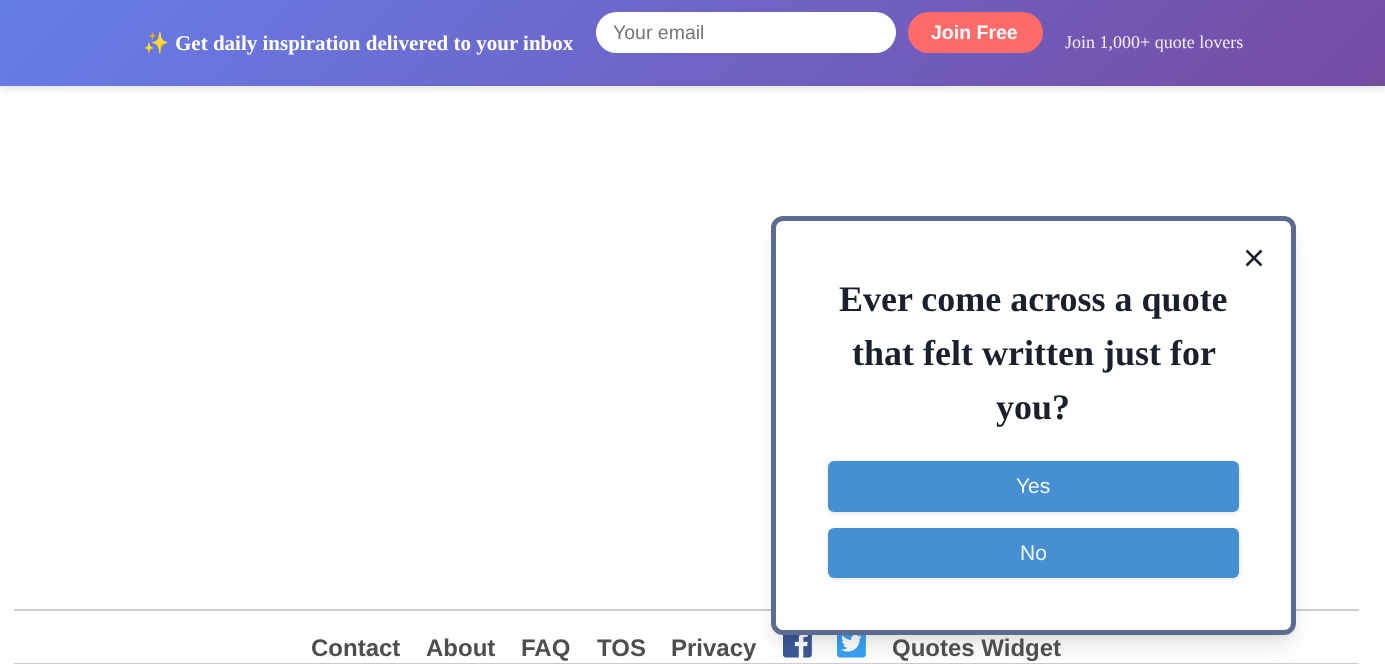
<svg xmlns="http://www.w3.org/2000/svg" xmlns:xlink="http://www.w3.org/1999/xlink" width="1385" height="664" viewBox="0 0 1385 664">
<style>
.cls-1{font:bold 21px Noto Color Emoji;fill:#ffffff}
.cls-2{font:bold 21px Liberation Serif;fill:#ffffff}
.cls-3{font:19.5px Liberation Sans;fill:#757575}
.cls-4{font:bold 19.5px Liberation Sans;fill:#ffffff}
.cls-5{font:18px Liberation Serif;fill:#f1eef7}
.cls-6{font:bold 36px Liberation Serif;fill:#1a202c}
.cls-7{font:21px Liberation Sans;fill:#edf9ff}
.cls-8{font:bold 24px Liberation Sans;fill:#4e4e4e}
</style>
<defs>
<linearGradient id="g1" gradientUnits="userSpaceOnUse" x1="325" y1="-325" x2="1061" y2="411"><stop offset="0" stop-color="#667eea"/><stop offset="1" stop-color="#764ba2"/></linearGradient>
</defs>
<rect width="100%" height="100%" fill="#ffffff"/>
<rect fill="#000000" fill-opacity="0.1" filter="blur(3px)" x="0" y="3" width="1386" height="86"/>
<rect fill="url(#g1)" x="0" y="0" width="1385" height="86"/>
<rect fill="#ffffff" x="596" y="12" width="300" height="41" rx="20.5"/>
<rect fill="#ff6b6b" x="908" y="12" width="135" height="41" rx="20.5"/>
<rect fill="#cccccc" x="14" y="609" width="1345" height="2"/>
<image xlink:href="image0.png" x="783" y="635" width="29" height="23"/>
<image xlink:href="image1.png" x="837" y="635" width="29" height="23"/>
<rect fill="#000000" fill-opacity="0.05" filter="blur(4.5px)" x="774" y="225" width="519" height="413" rx="9"/>
<rect fill="#cccccc" x="14" y="663" width="1345" height="1"/>
<rect fill="#000000" fill-opacity="0.1" filter="blur(11px)" x="776" y="236" width="516" height="409" rx="8"/>
<rect fill="#ffffff" stroke="#5d6b91" stroke-width="5" x="773.5" y="218.5" width="520" height="414" rx="9.5"/>
<path fill="none" stroke="#1a202c" stroke-width="2.6" d="M1246.5 250.5L1261.5 265.5M1246.5 265.5L1261.5 250.5"/>
<rect fill="#505a63" fill-opacity="0.16" filter="blur(3px)" x="828" y="462" width="411" height="51" rx="6"/>
<rect fill="#468fd3" x="828" y="461" width="411" height="51" rx="6"/>
<rect fill="#505a63" fill-opacity="0.16" filter="blur(3px)" x="828" y="530" width="411" height="49" rx="6"/>
<rect fill="#468fd3" x="828" y="528" width="411" height="50" rx="6"/>
<text class="cls-1" x="143" y="50">✨</text>
<text class="cls-2" x="175" y="50">Get daily inspiration delivered to your inbox</text>
<text class="cls-3" x="613" y="39">Your email</text>
<text class="cls-4" x="931" y="39">Join Free</text>
<text class="cls-5" x="1065" y="48">Join 1,000+ quote lovers</text>
<text class="cls-6" x="839" y="311">Ever come across a quote</text>
<text class="cls-6" x="852" y="365">that felt written just for</text>
<text class="cls-6" x="996" y="419">you?</text>
<text class="cls-7" x="1016" y="493">Yes</text>
<text class="cls-7" x="1020" y="560">No</text>
<text class="cls-8" x="311" y="656">Contact</text>
<text class="cls-8" x="426" y="656">About</text>
<text class="cls-8" x="521" y="656">FAQ</text>
<text class="cls-8" x="597" y="656">TOS</text>
<text class="cls-8" x="671" y="656">Privacy</text>
<text class="cls-8" x="892" y="656">Quotes Widget</text>
</svg>
